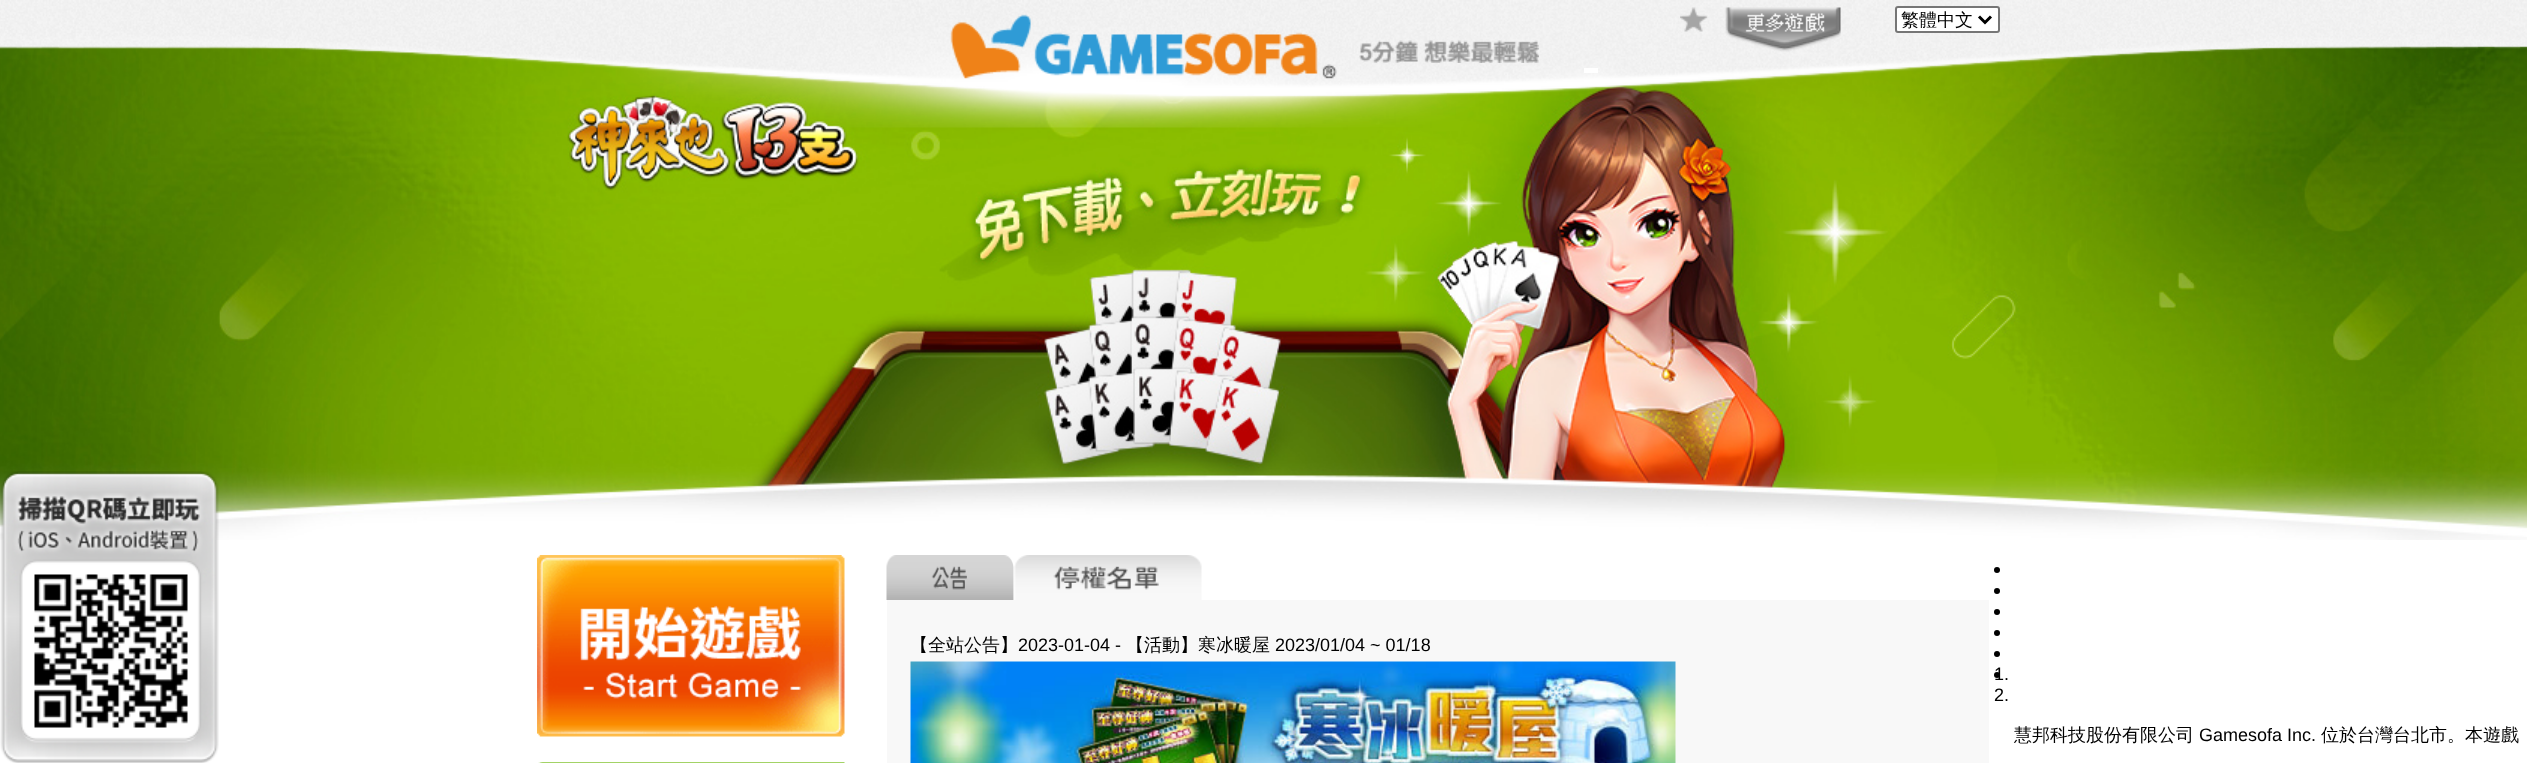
<svg xmlns="http://www.w3.org/2000/svg" xmlns:xlink="http://www.w3.org/1999/xlink" width="2527" height="763" viewBox="0 0 2527 763">
<style>
.cls-1{font:500 18px WenQuanYi Zen Hei;fill:#000000}
.cls-2{font:18px Liberation Sans;fill:#000000}
</style>
<rect width="100%" height="100%" fill="#ffffff"/>
<image xlink:href="image6.png" x="0" y="46" width="2527" height="494"/>
<image xlink:href="image0.png" x="0" y="46" width="2527" height="3"/>
<image xlink:href="image1.png" x="0" y="0" width="2527" height="128"/>
<image xlink:href="image2.png" x="950" y="14" width="387" height="65"/>
<image xlink:href="image3.png" x="1359" y="40" width="180" height="23"/>
<image xlink:href="image4.png" x="1680" y="7" width="28" height="25"/>
<image xlink:href="image5.png" x="1725" y="7" width="116" height="45"/>
<rect fill="#ffffff" stroke="#767676" stroke-width="2" x="1896" y="7" width="103" height="25" rx="2"/>
<path fill="none" stroke="#000000" stroke-width="3" d="M1979 16.5L1985 22.5L1991 16.5"/>
<rect fill="#000000" fill-opacity="0.5" filter="blur(0.5px)" x="1584" y="68" width="14" height="5"/>
<rect fill="#ffffff" x="1584" y="68" width="14" height="5"/>
<image xlink:href="image7.png" x="0" y="471" width="219" height="292"/>
<image xlink:href="image8.png" x="537" y="555" width="308" height="182"/>
<image xlink:href="image9.png" x="538" y="762" width="307" height="1"/>
<image xlink:href="image10.png" x="886" y="555" width="128" height="45"/>
<image xlink:href="image11.png" x="1014" y="555" width="188" height="45"/>
<rect fill="#f8f8f8" x="887" y="600" width="1102" height="163"/>
<image xlink:href="image12.png" x="910" y="661" width="766" height="102"/>
<circle fill="#000000" cx="1997" cy="570" r="3"/>
<circle fill="#000000" cx="1997" cy="591" r="3"/>
<circle fill="#000000" cx="1997" cy="612" r="3"/>
<circle fill="#000000" cx="1997" cy="633" r="3"/>
<circle fill="#000000" cx="1997" cy="654" r="3"/>
<circle fill="#000000" cx="1997" cy="675" r="3"/>
<text class="cls-1" x="1901" y="26">繁體中文</text>
<text class="cls-1" x="910" y="651">【全站公告】</text>
<text class="cls-2" x="1018" y="651">2023-01-04 -</text>
<text class="cls-1" x="1126" y="651">【活動】寒冰暖屋</text>
<text class="cls-2" x="1275" y="651">2023/01/04 ~ 01/18</text>
<text class="cls-2"><tspan x="1994" y="680">1.</tspan><tspan x="1994" y="701">2.</tspan></text>
<text class="cls-1" x="2014" y="741">慧邦科技股份有限公司</text>
<text class="cls-2" x="2199" y="741">Gamesofa Inc.</text>
<text class="cls-1" x="2321" y="741">位於台灣台北市。本遊戲</text>
</svg>
